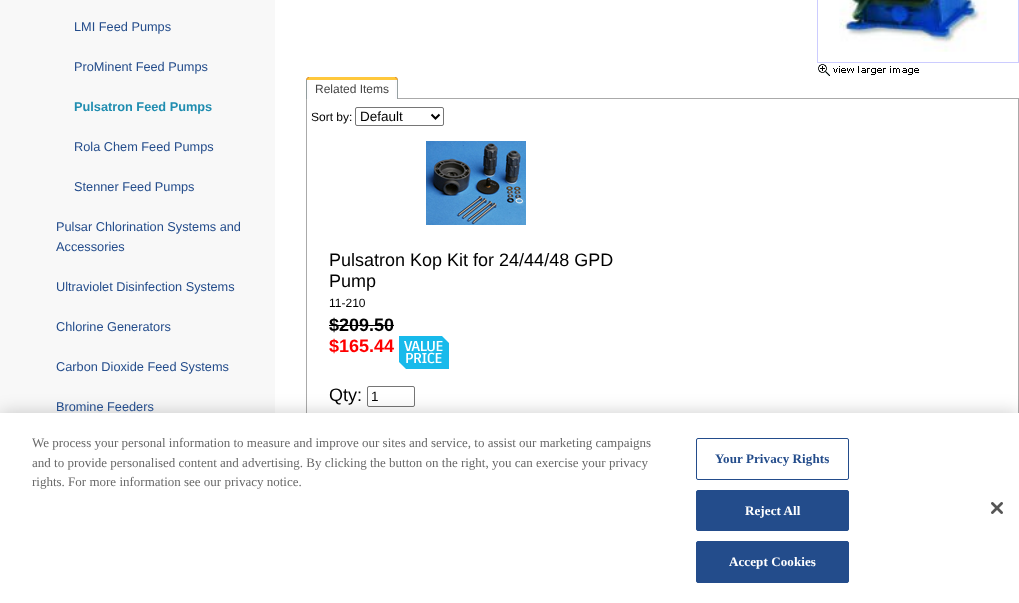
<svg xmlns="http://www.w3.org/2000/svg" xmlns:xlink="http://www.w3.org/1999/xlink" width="1019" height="603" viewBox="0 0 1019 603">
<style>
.cls-1{font:12.75px Liberation Sans;fill:#234c8b}
.cls-2{font:bold 12.75px Liberation Sans;fill:#208db0}
.cls-3{font:12px Liberation Sans;fill:#444444}
.cls-4{font:12px Liberation Sans;fill:#000000}
.cls-5{font:13.5px Liberation Sans;fill:#000000}
.cls-6{font:18px Liberation Sans;fill:#000000}
.cls-7{font:bold 18px Liberation Sans;fill:#000000}
.cls-8{font:bold 18px Liberation Sans;fill:#ff0000}
.cls-9{font:13px Liberation Serif;fill:#696969}
.cls-10{font:bold 13px Liberation Serif;letter-spacing:0.1px;fill:#234c8b}
.cls-11{font:bold 13px Liberation Serif;letter-spacing:0.1px;fill:#ffffff}
</style>
<rect width="100%" height="100%" fill="#ffffff"/>
<rect fill="#f8f8f8" x="0" y="0" width="275" height="413"/>
<rect fill="none" stroke="#ccccff" x="817.5" y="-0.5" width="201" height="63"/>
<image xlink:href="image0.png" x="839" y="0" width="148" height="52"/>
<image xlink:href="image1.png" x="818" y="64" width="101" height="12"/>
<image xlink:href="image2.png" x="306" y="77" width="3" height="22"/>
<rect fill="#ffc83c" x="309" y="77" width="86" height="3"/>
<image xlink:href="image3.png" x="395" y="77" width="3" height="22"/>
<rect fill="#aaaaaa" x="398" y="98" width="621" height="1"/>
<rect fill="#aaaaaa" x="1018" y="99" width="1" height="314"/>
<rect fill="#aaaaaa" x="306" y="99" width="1" height="314"/>
<rect fill="none" stroke="#767676" x="355.5" y="107.5" width="88" height="18" rx="1.5"/>
<path fill="none" stroke="#000000" stroke-width="2" d="M431.5 114.5L435.5 118.5L439.5 114.5"/>
<image xlink:href="image4.png" x="426" y="141" width="100" height="84"/>
<rect fill="#000000" x="329" y="325" width="65" height="1"/>
<image xlink:href="image5.png" x="399" y="336" width="50" height="33"/>
<rect fill="none" stroke="#767676" x="367.5" y="386.5" width="47" height="20" rx="1.5"/>
<rect fill="#000000" fill-opacity="0.2" filter="blur(9px)" x="0" y="413" width="1019" height="190"/>
<rect fill="#ffffff" x="0" y="413" width="1019" height="190"/>
<rect fill="none" stroke="#234c8b" x="696.5" y="438.5" width="152" height="41" rx="1.5"/>
<rect fill="#234c8b" stroke="#234c8b" x="696.5" y="490.5" width="152" height="40" rx="1.5"/>
<rect fill="#234c8b" stroke="#234c8b" x="696.5" y="541.5" width="152" height="41" rx="1.5"/>
<image xlink:href="image6.png" x="991" y="502" width="12" height="12"/>
<text class="cls-1" x="74" y="31">LMI Feed Pumps</text>
<text class="cls-1" x="74" y="71">ProMinent Feed Pumps</text>
<text class="cls-2" x="74" y="111">Pulsatron Feed Pumps</text>
<text class="cls-1" x="74" y="151">Rola Chem Feed Pumps</text>
<text class="cls-1" x="74" y="191">Stenner Feed Pumps</text>
<text class="cls-1"><tspan x="56" y="231">Pulsar Chlorination Systems and</tspan><tspan x="56" y="251">Accessories</tspan></text>
<text class="cls-1" x="56" y="291">Ultraviolet Disinfection Systems</text>
<text class="cls-1" x="56" y="331">Chlorine Generators</text>
<text class="cls-1" x="56" y="371">Carbon Dioxide Feed Systems</text>
<text class="cls-1" x="56" y="411">Bromine Feeders</text>
<text class="cls-3" x="315" y="93">Related Items</text>
<text class="cls-4" x="311" y="121">Sort by:</text>
<text class="cls-5" x="360" y="121">Default</text>
<text class="cls-6"><tspan x="329" y="266">Pulsatron Kop Kit for 24/44/48 GPD</tspan><tspan x="329" y="287">Pump</tspan></text>
<text class="cls-4" x="329" y="307">11-210</text>
<text class="cls-7" x="329" y="331">$209.50</text>
<text class="cls-8" x="329" y="352">$165.44</text>
<text class="cls-6" x="329" y="401">Qty:</text>
<text class="cls-5" x="371" y="401">1</text>
<text class="cls-9"><tspan x="32" y="447">We process your personal information to measure and improve our sites and service, to assist our marketing campaigns</tspan><tspan x="32" y="467">and to provide personalised content and advertising. By clicking the button on the right, you can exercise your privacy</tspan><tspan x="32" y="486">rights. For more information see our privacy notice.</tspan></text>
<text class="cls-10" x="715" y="463">Your Privacy Rights</text>
<text class="cls-11" x="745" y="515">Reject All</text>
<text class="cls-11" x="729" y="566">Accept Cookies</text>
</svg>
